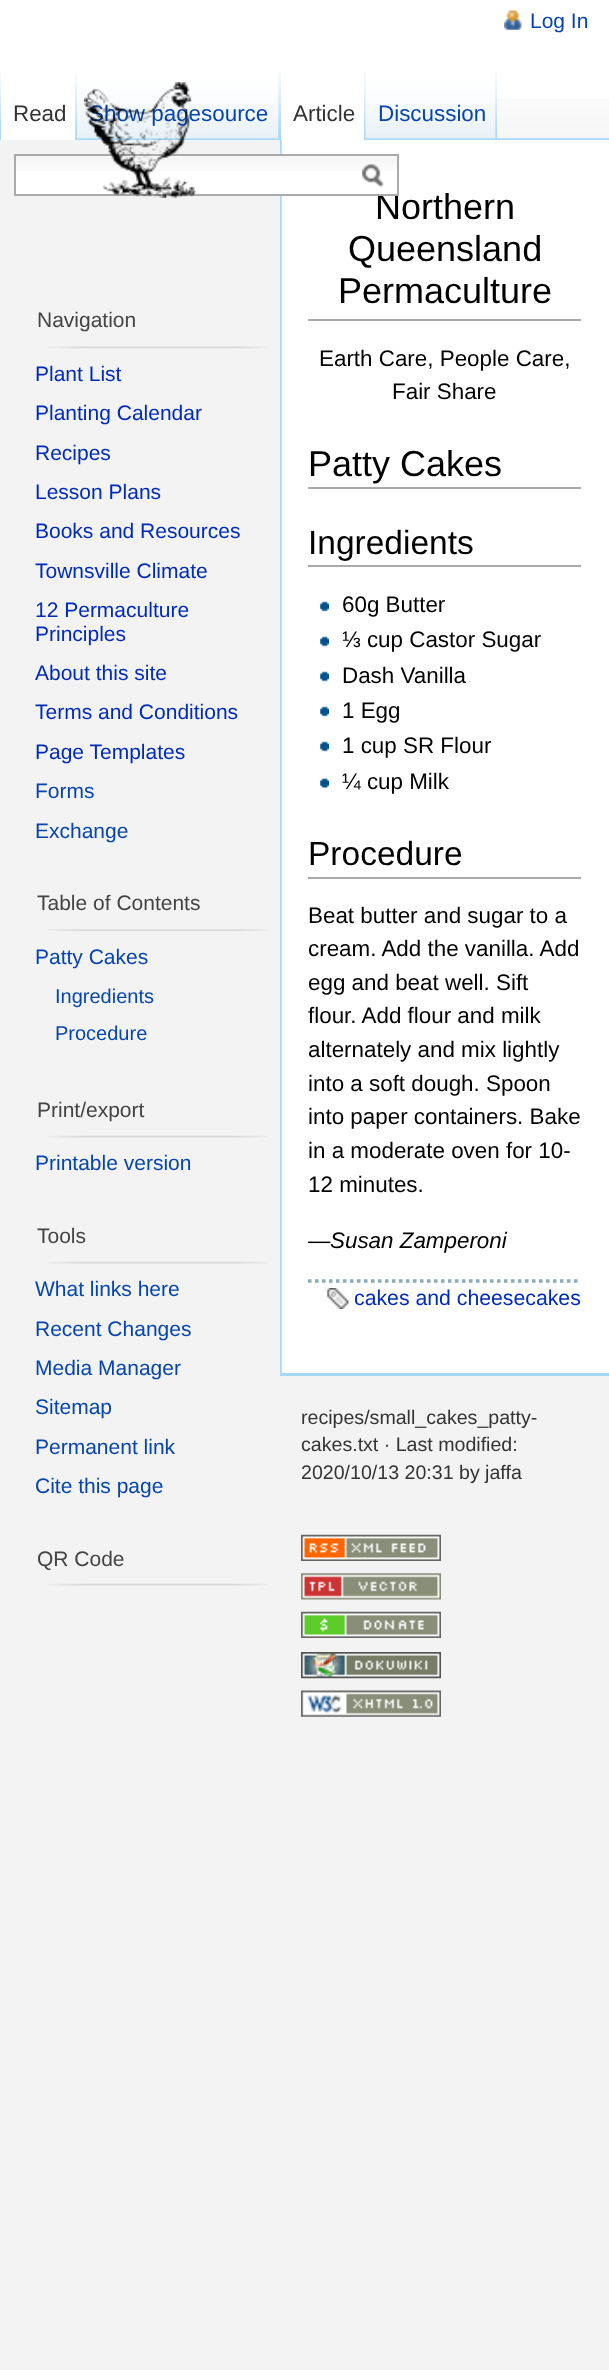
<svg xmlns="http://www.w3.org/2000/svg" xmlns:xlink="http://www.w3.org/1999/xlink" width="609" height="2370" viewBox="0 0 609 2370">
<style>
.cls-1{font:21px Liberation Sans;fill:#0645ad}
.cls-2{font:22.4px Liberation Sans;fill:#333333}
.cls-3{font:22.4px Liberation Sans;fill:#0645ad}
.cls-4{font:21px Liberation Sans;fill:#444444}
.cls-5{font:21px Liberation Sans;fill:#002bb8}
.cls-6{font:20px Liberation Sans;fill:#0645ad}
.cls-7{font:36px Liberation Sans;fill:#000000}
.cls-8{font:22.4px Liberation Sans;fill:#000000}
.cls-9{font:33.5px Liberation Sans;fill:#000000}
.cls-10{font:italic 22.4px Liberation Sans;fill:#000000}
.cls-11{font:21.25px Liberation Sans;fill:#002bb8}
.cls-12{font:19.6px Liberation Sans;fill:#333333}
</style>
<rect width="100%" height="100%" fill="#f3f3f3"/>
<rect fill="#ffffff" x="0" y="0" width="609" height="99"/>
<image xlink:href="image0.png" x="497" y="99" width="112" height="40"/>
<image xlink:href="image1.png" x="504" y="10" width="18" height="20"/>
<image xlink:href="image2.png" x="0" y="70" width="1" height="70"/>
<rect fill="#ffffff" x="1" y="99" width="75" height="41"/>
<image xlink:href="image3.png" x="75" y="70" width="2" height="70"/>
<image xlink:href="image4.png" x="77" y="70" width="203" height="70"/>
<image xlink:href="image5.png" x="278" y="70" width="2" height="69"/>
<image xlink:href="image6.png" x="280" y="139" width="1" height="1"/>
<rect fill="#ffffff" x="281" y="140" width="328" height="1233"/>
<image xlink:href="image17.png" x="280" y="140" width="2" height="1233"/>
<rect fill="#ffffff" x="16" y="171" width="266" height="23"/>
<image xlink:href="image7.png" x="16" y="156" width="381" height="15"/>
<image xlink:href="image9.png" x="280" y="70" width="1" height="69"/>
<rect fill="#ffffff" x="281" y="99" width="85" height="41"/>
<image xlink:href="image10.png" x="364" y="70" width="2" height="70"/>
<image xlink:href="image11.png" x="365" y="70" width="132" height="70"/>
<image xlink:href="image5.png" x="495" y="70" width="2" height="69"/>
<image xlink:href="image12.png" x="497" y="138" width="112" height="2"/>
<image xlink:href="image14.png" x="47" y="346" width="221" height="3"/>
<image xlink:href="image15.png" x="47" y="929" width="221" height="2"/>
<image xlink:href="image16.png" x="47" y="1135" width="221" height="3"/>
<image xlink:href="image16.png" x="47" y="1261" width="221" height="3"/>
<image xlink:href="image16.png" x="47" y="1583" width="221" height="3"/>
<rect fill="#aaaaaa" x="308" y="319" width="273" height="2"/>
<rect fill="#aaaaaa" x="308" y="487" width="273" height="2"/>
<rect fill="#aaaaaa" x="308" y="565" width="273" height="2"/>
<image xlink:href="image18.png" x="320" y="601" width="9" height="11"/>
<image xlink:href="image18.png" x="320" y="636" width="9" height="11"/>
<image xlink:href="image18.png" x="320" y="671" width="9" height="11"/>
<image xlink:href="image18.png" x="320" y="706" width="9" height="11"/>
<image xlink:href="image18.png" x="320" y="741" width="9" height="11"/>
<image xlink:href="image19.png" x="320" y="778" width="9" height="10"/>
<rect fill="#aaaaaa" x="308" y="877" width="273" height="2"/>
<path fill="none" stroke="#8cacbb" stroke-width="3.5" stroke-dasharray="3.5 3.5" d="M308 1281H581"/>
<image xlink:href="image20.png" x="326" y="1288" width="23" height="21"/>
<rect fill="#a7d7f9" x="280" y="1373" width="329" height="3"/>
<image xlink:href="image21.png" x="301" y="1534" width="140" height="27"/>
<image xlink:href="image22.png" x="301" y="1573" width="140" height="27"/>
<image xlink:href="image23.png" x="301" y="1611" width="140" height="27"/>
<image xlink:href="image24.png" x="301" y="1652" width="140" height="27"/>
<image xlink:href="image25.png" x="301" y="1690" width="140" height="27"/>
<text class="cls-1" x="530" y="28">Log In</text>
<text class="cls-2" x="13" y="121">Read</text>
<text class="cls-3" x="89" y="121">Show pagesource</text>
<text class="cls-2" x="293" y="121">Article</text>
<text class="cls-3" x="378" y="121">Discussion</text>
<text class="cls-4" x="37" y="327">Navigation</text>
<text class="cls-5"><tspan x="35" y="381">Plant List</tspan><tspan x="35" y="420">Planting Calendar</tspan><tspan x="35" y="460">Recipes</tspan><tspan x="35" y="499">Lesson Plans</tspan><tspan x="35" y="538">Books and Resources</tspan><tspan x="35" y="578">Townsville Climate</tspan><tspan x="35" y="617">12 Permaculture</tspan><tspan x="35" y="641">Principles</tspan><tspan x="35" y="680">About this site</tspan><tspan x="35" y="719">Terms and Conditions</tspan><tspan x="35" y="759">Page Templates</tspan></text>
<text class="cls-1"><tspan x="35" y="798">Forms</tspan><tspan x="35" y="838">Exchange</tspan></text>
<text class="cls-4" x="37" y="910">Table of Contents</text>
<text class="cls-1" x="35" y="964">Patty Cakes</text>
<text class="cls-6"><tspan x="55" y="1003">Ingredients</tspan><tspan x="55" y="1040">Procedure</tspan></text>
<text class="cls-4" x="37" y="1117">Print/export</text>
<text class="cls-1" x="35" y="1170">Printable version</text>
<text class="cls-4" x="37" y="1243">Tools</text>
<text class="cls-1"><tspan x="35" y="1296">What links here</tspan><tspan x="35" y="1336">Recent Changes</tspan><tspan x="35" y="1375">Media Manager</tspan><tspan x="35" y="1414">Sitemap</tspan><tspan x="35" y="1454">Permanent link</tspan><tspan x="35" y="1493">Cite this page</tspan></text>
<text class="cls-4" x="37" y="1566">QR Code</text>
<text class="cls-7" x="375" y="219">Northern</text>
<rect fill="none" stroke="#aaaaaa" stroke-width="2" x="15" y="155" width="383" height="40"/>
<image xlink:href="image13.png" x="84" y="82" width="112" height="116"/>
<image xlink:href="image8.png" x="362" y="164" width="22" height="24"/>
<text class="cls-7" x="348" y="261">Queensland</text>
<text class="cls-7" x="338" y="303">Permaculture</text>
<text class="cls-8" x="319" y="366">Earth Care, People Care,</text>
<text class="cls-8" x="392" y="399">Fair Share</text>
<text class="cls-7" x="308" y="476">Patty Cakes</text>
<text class="cls-9" x="308" y="554">Ingredients</text>
<text class="cls-8"><tspan x="342" y="612">60g Butter</tspan><tspan x="342" y="647">⅓ cup Castor Sugar</tspan><tspan x="342" y="683">Dash Vanilla</tspan><tspan x="342" y="718">1 Egg</tspan><tspan x="342" y="753">1 cup SR Flour</tspan><tspan x="342" y="789">¼ cup Milk</tspan></text>
<text class="cls-9" x="308" y="865">Procedure</text>
<text class="cls-8"><tspan x="308" y="923">Beat butter and sugar to a</tspan><tspan x="308" y="956">cream. Add the vanilla. Add</tspan><tspan x="308" y="990">egg and beat well. Sift</tspan><tspan x="308" y="1023">flour. Add flour and milk</tspan><tspan x="308" y="1057">alternately and mix lightly</tspan><tspan x="308" y="1091">into a soft dough. Spoon</tspan><tspan x="308" y="1124">into paper containers. Bake</tspan><tspan x="308" y="1158">in a moderate oven for 10-</tspan><tspan x="308" y="1192">12 minutes.</tspan></text>
<text class="cls-8" x="308" y="1248">—</text>
<text class="cls-10" x="330" y="1248">Susan Zamperoni</text>
<text class="cls-11" x="354" y="1305">cakes and cheesecakes</text>
<text class="cls-12"><tspan x="301" y="1424">recipes/small_cakes_patty-</tspan><tspan x="301" y="1451">cakes.txt · Last modified:</tspan><tspan x="301" y="1479">2020/10/13 20:31 by jaffa</tspan></text>
</svg>
